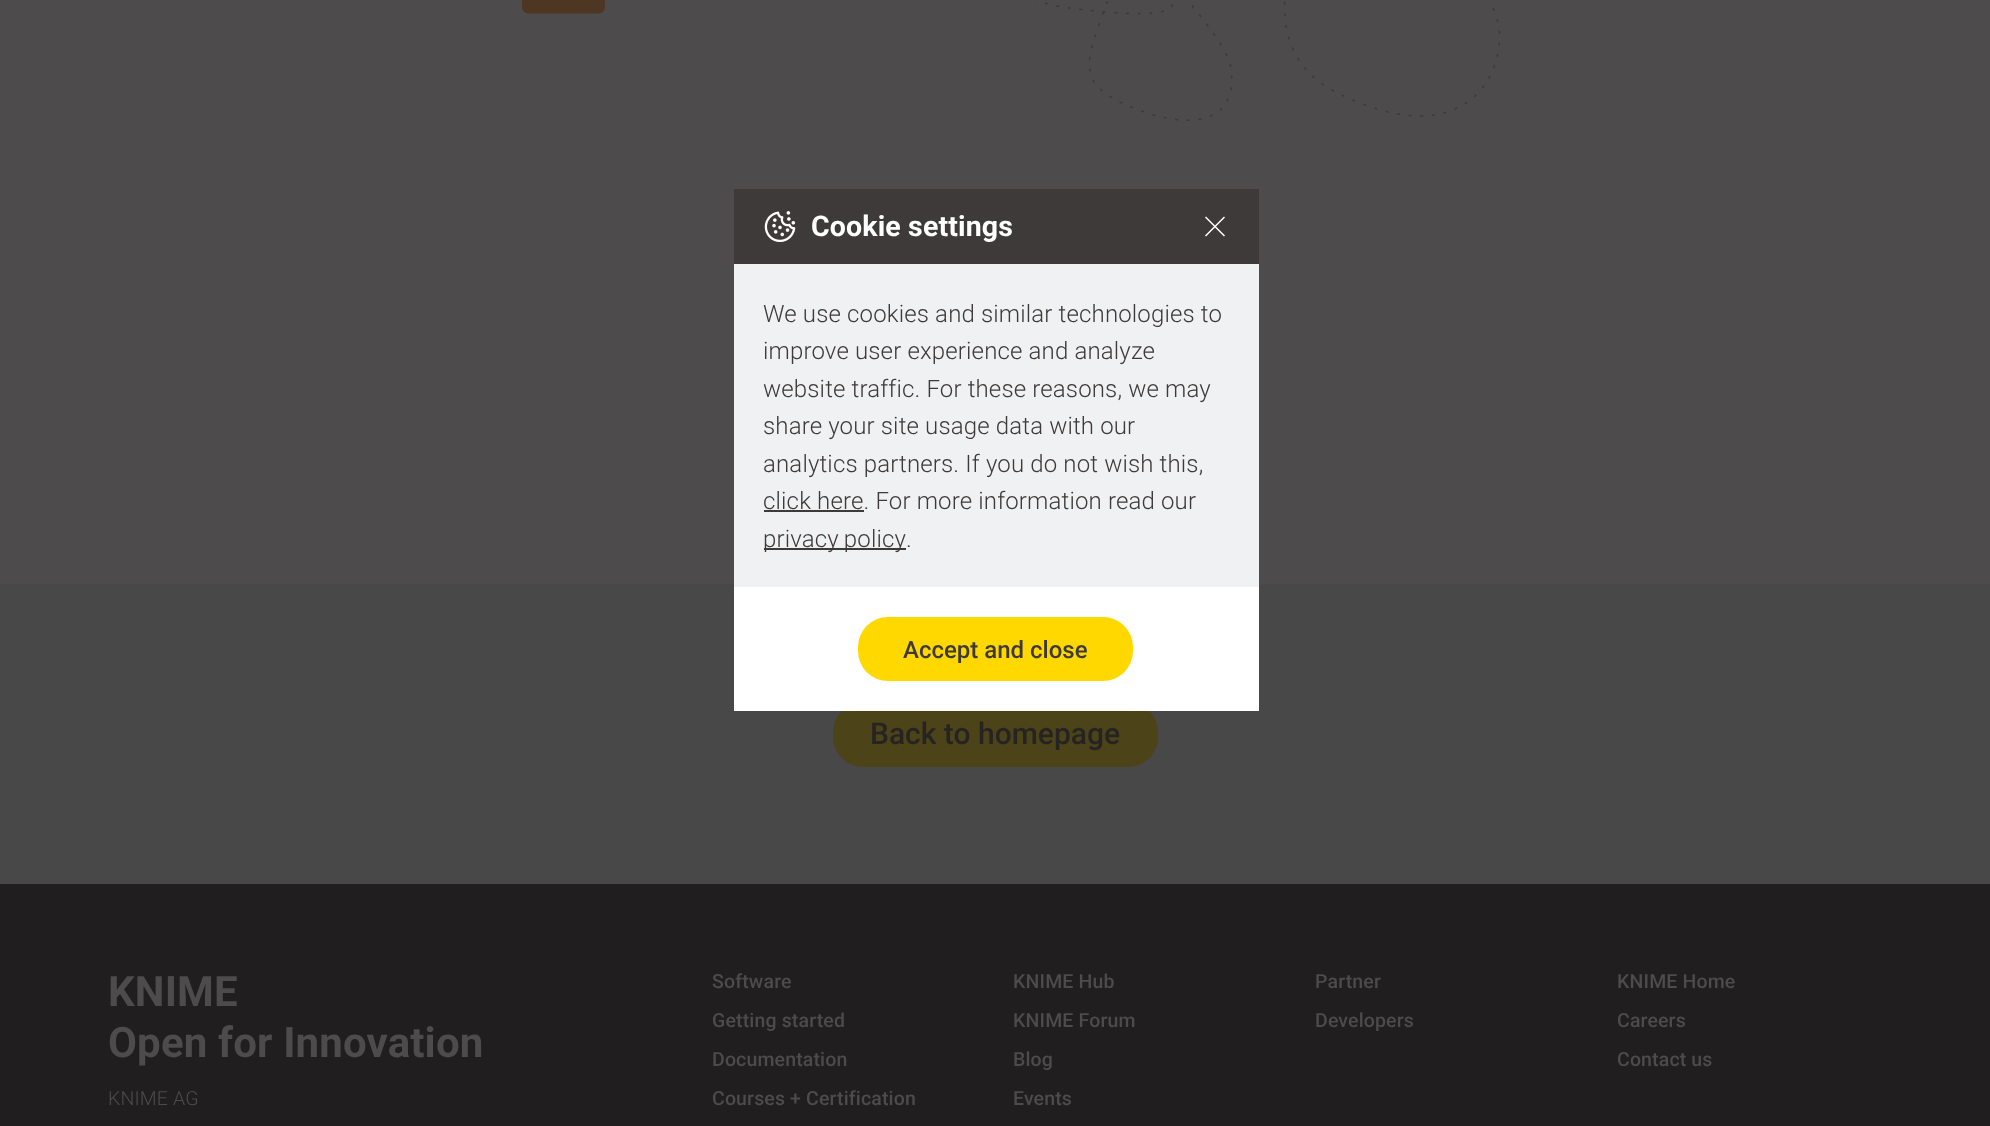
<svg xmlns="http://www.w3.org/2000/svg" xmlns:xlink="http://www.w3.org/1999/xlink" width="1990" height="1126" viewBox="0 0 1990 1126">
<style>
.cls-1{font:bold 28.5px Roboto;letter-spacing:0.15px;fill:#ffffff}
.cls-2{font:300 24px Roboto;letter-spacing:0.15px;fill:#3e3a39}
.cls-3{font:500 24px Roboto;fill:#3e3a39}
.cls-4{font:500 30px Roboto;fill:#262423}
.cls-5{font:bold 42px Roboto;letter-spacing:0.15px;fill:#4d4b4b}
.cls-6{font:300 19.5px Roboto;letter-spacing:0.15px;fill:#4d4b4b}
.cls-7{font:500 19.5px Roboto;letter-spacing:0.15px;fill:#4d4b4b}
</style>
<rect width="100%" height="100%" fill="#494848"/>
<rect fill="#4d4318" x="833" y="702" width="325" height="65" rx="30"/>
<rect fill="#ffffff" x="734" y="587" width="525" height="124"/>
<rect fill="#4d4b4b" x="0" y="0" width="1990" height="584"/>
<rect fill="#3e3a39" x="734" y="189" width="525" height="75"/>
<image xlink:href="image0.png" x="764" y="211" width="32" height="32"/>
<path fill="none" stroke="#ffffff" stroke-width="1.5" stroke-linejoin="round" d="M1205.5 236L1224.5 217M1205.5 217L1224.5 236"/>
<rect fill="#eff1f2" x="734" y="264" width="525" height="323"/>
<rect fill="#3e3a39" x="764" y="510" width="100" height="2"/>
<rect fill="#3e3a39" x="764" y="548" width="142" height="2"/>
<rect fill="#ffd800" x="858" y="617" width="275" height="64" rx="30"/>
<image xlink:href="image1.png" x="522" y="0" width="979" height="121"/>
<rect fill="#201e1e" x="0" y="884" width="1990" height="242"/>
<text class="cls-1" x="811" y="236">Cookie settings</text>
<text class="cls-2"><tspan x="763" y="322">We use cookies and similar technologies to</tspan><tspan x="763" y="359">improve user experience and analyze</tspan><tspan x="763" y="397">website traffic. For these reasons, we may</tspan><tspan x="763" y="434">share your site usage data with our</tspan><tspan x="763" y="472">analytics partners. If you do not wish this,</tspan><tspan x="763" y="509">click here. For more information read our</tspan><tspan x="763" y="547" word-spacing="-1">privacy policy</tspan></text>
<text class="cls-2" x="906" y="547">.</text>
<text class="cls-3" x="903" y="658">Accept and close</text>
<text class="cls-4" x="870" y="744">Back to homepage</text>
<text class="cls-5"><tspan x="108" y="1006">KNIME</tspan><tspan x="108" y="1057">Open for Innovation</tspan></text>
<text class="cls-6" x="108" y="1105">KNIME AG</text>
<text class="cls-7" x="712" y="988">Software</text>
<text class="cls-7" x="712" y="1027">Getting started</text>
<text class="cls-7" x="712" y="1066">Documentation</text>
<text class="cls-7" x="712" y="1105">Courses + Certification</text>
<text class="cls-7" x="1013" y="988">KNIME Hub</text>
<text class="cls-7" x="1013" y="1027">KNIME Forum</text>
<text class="cls-7" x="1013" y="1066">Blog</text>
<text class="cls-7" x="1013" y="1105">Events</text>
<text class="cls-7" x="1315" y="988">Partner</text>
<text class="cls-7" x="1315" y="1027">Developers</text>
<text class="cls-7" x="1617" y="988">KNIME Home</text>
<text class="cls-7" x="1617" y="1027">Careers</text>
<text class="cls-7" x="1617" y="1066">Contact us</text>
</svg>
